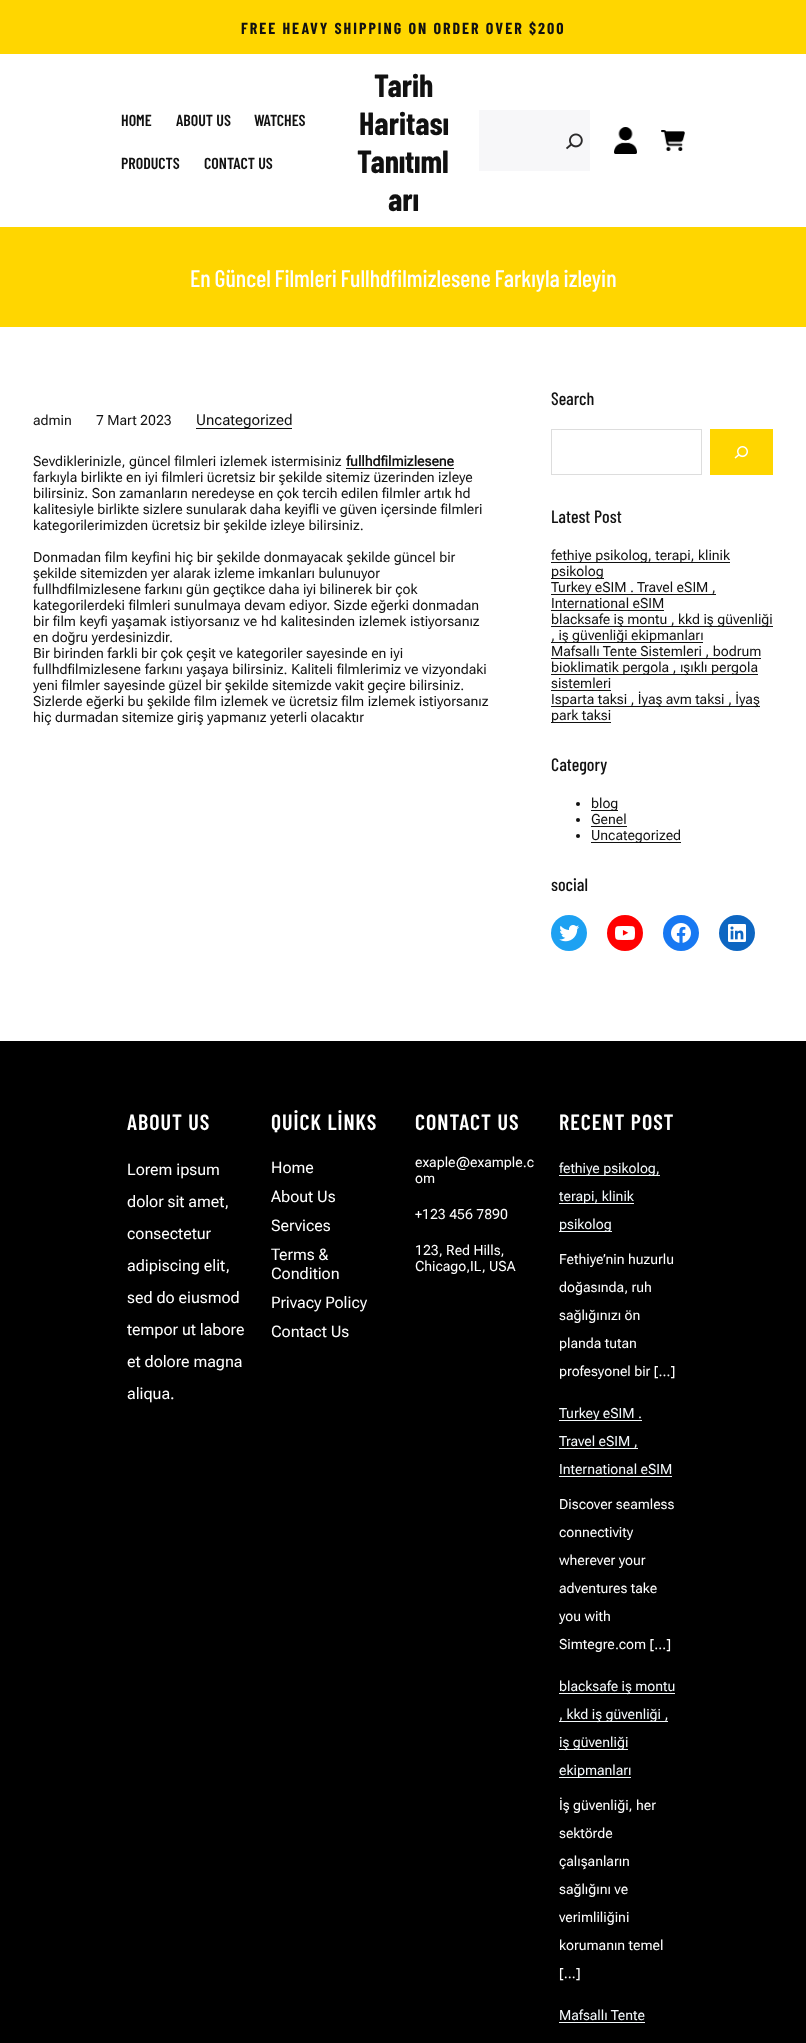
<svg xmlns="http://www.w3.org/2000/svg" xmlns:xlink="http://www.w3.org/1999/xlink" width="806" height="2043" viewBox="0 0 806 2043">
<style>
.cls-1{font:bold 16px Barlow Condensed;letter-spacing:2px;fill:#111111}
.cls-2{font:600 16px Barlow Condensed;fill:#111111}
.cls-3{font:bold 32px Barlow Condensed;fill:#111111}
.cls-4{font:500 24px Barlow Condensed;fill:#ffffff}
.cls-5{font:14px Roboto Flex;fill:#111111}
.cls-6{font:15px Roboto Flex;fill:#111111}
.cls-7{font:bold 14px Roboto Flex;fill:#111111}
.cls-8{font:500 18px Barlow Condensed;fill:#111111}
.cls-9{font:600 22px Barlow Condensed;letter-spacing:1px;fill:#ffffff}
.cls-10{font:16px Roboto Flex;fill:#ffffff}
.cls-11{font:14px Roboto Flex;fill:#ffffff}
.cls-12{font:14px Roboto Flex;fill:#f5fafd}
</style>
<rect width="100%" height="100%" fill="#ffffff"/>
<rect fill="#ffd600" x="0" y="0" width="806" height="54"/>
<rect fill="#f7f7f9" x="479" y="110" width="111" height="61"/>
<image xlink:href="image0.png" x="566" y="133" width="17" height="17"/>
<image xlink:href="image1.png" x="614" y="127" width="23" height="27"/>
<image xlink:href="image2.png" x="661" y="130" width="24" height="21"/>
<rect fill="#ffd600" x="0" y="227" width="806" height="100"/>
<rect fill="#111111" x="196" y="428" width="96" height="1"/>
<rect fill="#111111" x="346" y="468" width="108" height="1"/>
<rect fill="none" stroke="#dddddd" x="551.5" y="429.5" width="150" height="45"/>
<rect fill="#ffd600" x="710" y="429" width="63" height="46"/>
<image xlink:href="image3.png" x="734" y="446" width="14" height="13"/>
<rect fill="#111111" x="551" y="562" width="179" height="1"/>
<rect fill="#111111" x="551" y="578" width="53" height="1"/>
<rect fill="#111111" x="551" y="594" width="165" height="1"/>
<rect fill="#111111" x="551" y="610" width="113" height="1"/>
<rect fill="#111111" x="551" y="626" width="222" height="1"/>
<rect fill="#111111" x="551" y="642" width="152" height="1"/>
<rect fill="#111111" x="551" y="658" width="210" height="1"/>
<rect fill="#111111" x="551" y="674" width="207" height="1"/>
<rect fill="#111111" x="551" y="690" width="60" height="1"/>
<rect fill="#111111" x="551" y="706" width="209" height="1"/>
<rect fill="#111111" x="551" y="722" width="60" height="1"/>
<circle fill="#111111" cx="578" cy="804" r="2"/>
<rect fill="#111111" x="591" y="810" width="27" height="1"/>
<circle fill="#111111" cx="578" cy="820" r="2"/>
<rect fill="#111111" x="591" y="826" width="36" height="1"/>
<circle fill="#111111" cx="578" cy="836" r="2"/>
<rect fill="#111111" x="591" y="842" width="90" height="1"/>
<circle fill="#1da1f2" cx="569" cy="933" r="18"/>
<image xlink:href="image4.png" x="559" y="925" width="20" height="17"/>
<circle fill="#ff0000" cx="625" cy="933" r="18"/>
<image xlink:href="image5.png" x="615" y="926" width="20" height="14"/>
<circle fill="#1778f2" cx="681" cy="933" r="18"/>
<image xlink:href="image6.png" x="671" y="923" width="20" height="20"/>
<circle fill="#0d66c2" cx="737" cy="933" r="18"/>
<image xlink:href="image7.png" x="728" y="924" width="18" height="18"/>
<rect fill="#000000" x="0" y="1041" width="806" height="1002"/>
<rect fill="#f5fafd" x="559" y="1175" width="101" height="1"/>
<rect fill="#f5fafd" x="559" y="1203" width="75" height="1"/>
<rect fill="#f5fafd" x="559" y="1231" width="53" height="1"/>
<rect fill="#f5fafd" x="559" y="1420" width="83" height="1"/>
<rect fill="#f5fafd" x="559" y="1448" width="79" height="1"/>
<rect fill="#f5fafd" x="559" y="1476" width="113" height="1"/>
<rect fill="#f5fafd" x="559" y="1693" width="116" height="1"/>
<rect fill="#f5fafd" x="559" y="1721" width="109" height="1"/>
<rect fill="#f5fafd" x="559" y="1749" width="69" height="1"/>
<rect fill="#f5fafd" x="559" y="1777" width="72" height="1"/>
<rect fill="#f5fafd" x="559" y="2022" width="86" height="1"/>
<text class="cls-1" x="241" y="34">FREE HEAVY SHIPPING ON ORDER OVER $200</text>
<text class="cls-2" x="121" y="126">HOME</text>
<text class="cls-2" x="176" y="126">ABOUT US</text>
<text class="cls-2" x="254" y="126">WATCHES</text>
<text class="cls-2" x="121" y="169">PRODUCTS</text>
<text class="cls-2" x="204" y="169">CONTACT US</text>
<text class="cls-3" x="374" y="97">Tarih</text>
<text class="cls-3" x="359" y="135">Haritası</text>
<text class="cls-3" x="357" y="173">Tanıtıml</text>
<text class="cls-3" x="388" y="211">arı</text>
<text class="cls-4" x="190" y="287" word-spacing="-1">En Güncel Filmleri Fullhdfilmizlesene Farkıyla izleyin</text>
<text class="cls-5" x="33" y="425">admin</text>
<text class="cls-5" x="96" y="425">7 Mart 2023</text>
<text class="cls-6" x="196" y="425">Uncategorized</text>
<text class="cls-5" x="33" y="466" word-spacing="0.1">Sevdiklerinizle, güncel filmleri izlemek istermisiniz</text>
<text class="cls-7" x="346" y="466">fullhdfilmizlesene</text>
<text class="cls-5"><tspan x="33" y="482">farkıyla birlikte en iyi filmleri ücretsiz bir şekilde sitemiz üzerinden izleye</tspan><tspan x="33" y="498">bilirsiniz. Son zamanların neredeyse en çok tercih edilen filmler artık hd</tspan><tspan x="33" y="514">kalitesiyle birlikte sizlere sunularak daha keyifli ve güven içersinde filmleri</tspan><tspan x="33" y="530">kategorilerimizden ücretsiz bir şekilde izleye bilirsiniz.</tspan></text>
<text class="cls-5"><tspan x="33" y="562" word-spacing="0.25">Donmadan film keyfini hiç bir şekilde donmayacak şekilde güncel bir</tspan><tspan x="33" y="578">şekilde sitemizden yer alarak izleme imkanları bulunuyor</tspan><tspan x="33" y="594">fullhdfilmizlesene farkını gün geçtikce daha iyi bilinerek bir çok</tspan><tspan x="33" y="610">kategorilerdeki filmleri sunulmaya devam ediyor. Sizde eğerki donmadan</tspan><tspan x="33" y="626" word-spacing="0.25">bir film keyfi yaşamak istiyorsanız ve hd kalitesinden izlemek istiyorsanız</tspan><tspan x="33" y="642">en doğru yerdesinizdir.</tspan><tspan x="33" y="658">Bir birinden farkli bir çok çeşit ve kategoriler sayesinde en iyi</tspan><tspan x="33" y="674" word-spacing="0.25">fullhdfilmizlesene farkını yaşaya bilirsiniz. Kaliteli filmlerimiz ve vizyondaki</tspan><tspan x="33" y="690">yeni filmler sayesinde güzel bir şekilde sitemizde vakit geçire bilirsiniz.</tspan><tspan x="33" y="706" word-spacing="0.1">Sizlerde eğerki bu şekilde film izlemek ve ücretsiz film izlemek istiyorsanız</tspan><tspan x="33" y="722">hiç durmadan sitemize giriş yapmanız yeterli olacaktır</tspan></text>
<text class="cls-8" x="551" y="405">Search</text>
<text class="cls-8" x="551" y="523">Latest Post</text>
<text class="cls-5"><tspan x="551" y="560">fethiye psikolog, terapi, klinik</tspan><tspan x="551" y="576">psikolog</tspan><tspan x="551" y="592">Turkey eSIM . Travel eSIM ,</tspan><tspan x="551" y="608">International eSIM</tspan><tspan x="551" y="624">blacksafe iş montu , kkd iş güvenliği</tspan><tspan x="551" y="640">, iş güvenliği ekipmanları</tspan><tspan x="551" y="656">Mafsallı Tente Sistemleri , bodrum</tspan><tspan x="551" y="672">bioklimatik pergola , ışıklı pergola</tspan><tspan x="551" y="688">sistemleri</tspan><tspan x="551" y="704">Isparta taksi , İyaş avm taksi , İyaş</tspan><tspan x="551" y="720">park taksi</tspan></text>
<text class="cls-8" x="551" y="771">Category</text>
<text class="cls-5"><tspan x="591" y="808">blog</tspan><tspan x="591" y="824">Genel</tspan><tspan x="591" y="840">Uncategorized</tspan></text>
<text class="cls-8" x="551" y="891">social</text>
<text class="cls-9" x="127" y="1130">ABOUT US</text>
<text class="cls-10" x="127" y="1175">Lorem ipsum</text>
<text class="cls-10" x="127" y="1207">dolor sit amet,</text>
<text class="cls-10" x="127" y="1239">consectetur</text>
<text class="cls-10" x="127" y="1271">adipiscing elit,</text>
<text class="cls-10" x="127" y="1303">sed do eiusmod</text>
<text class="cls-10" x="127" y="1335">tempor ut labore</text>
<text class="cls-10" x="127" y="1367">et dolore magna</text>
<text class="cls-10" x="127" y="1399">aliqua.</text>
<text class="cls-9" x="271" y="1130">QUİCK LİNKS</text>
<text class="cls-10"><tspan x="271" y="1173">Home</tspan><tspan x="271" y="1202">About Us</tspan><tspan x="271" y="1231">Services</tspan><tspan x="271" y="1260">Terms &amp;</tspan><tspan x="271" y="1279">Condition</tspan><tspan x="271" y="1308">Privacy Policy</tspan><tspan x="271" y="1337">Contact Us</tspan></text>
<text class="cls-9" x="415" y="1130">CONTACT US</text>
<text class="cls-11"><tspan x="415" y="1167">exaple@example.c</tspan><tspan x="415" y="1183">om</tspan></text>
<text class="cls-11" x="415" y="1219">+123 456 7890</text>
<text class="cls-11"><tspan x="415" y="1255">123, Red Hills,</tspan><tspan x="415" y="1271">Chicago,IL, USA</tspan></text>
<text class="cls-9" x="559" y="1130">RECENT POST</text>
<text class="cls-12" x="559" y="1173">fethiye psikolog,</text>
<text class="cls-12" x="559" y="1201">terapi, klinik</text>
<text class="cls-12" x="559" y="1229">psikolog</text>
<text class="cls-11" x="559" y="1264">Fethiye’nin huzurlu</text>
<text class="cls-11" x="559" y="1292">doğasında, ruh</text>
<text class="cls-11" x="559" y="1320">sağlığınızı ön</text>
<text class="cls-11" x="559" y="1348">planda tutan</text>
<text class="cls-11" x="559" y="1376">profesyonel bir […]</text>
<text class="cls-12" x="559" y="1418">Turkey eSIM .</text>
<text class="cls-12" x="559" y="1446">Travel eSIM ,</text>
<text class="cls-12" x="559" y="1474">International eSIM</text>
<text class="cls-11" x="559" y="1509">Discover seamless</text>
<text class="cls-11" x="559" y="1537">connectivity</text>
<text class="cls-11" x="559" y="1565">wherever your</text>
<text class="cls-11" x="559" y="1593">adventures take</text>
<text class="cls-11" x="559" y="1621">you with</text>
<text class="cls-11" x="559" y="1649">Simtegre.com […]</text>
<text class="cls-12" x="559" y="1691">blacksafe iş montu</text>
<text class="cls-12" x="559" y="1719">, kkd iş güvenliği ,</text>
<text class="cls-12" x="559" y="1747">iş güvenliği</text>
<text class="cls-12" x="559" y="1775">ekipmanları</text>
<text class="cls-11" x="559" y="1810">İş güvenliği, her</text>
<text class="cls-11" x="559" y="1838">sektörde</text>
<text class="cls-11" x="559" y="1866">çalışanların</text>
<text class="cls-11" x="559" y="1894">sağlığını ve</text>
<text class="cls-11" x="559" y="1922">verimliliğini</text>
<text class="cls-11" x="559" y="1950">korumanın temel</text>
<text class="cls-11" x="559" y="1978">[…]</text>
<text class="cls-12" x="559" y="2020">Mafsallı Tente</text>
</svg>
